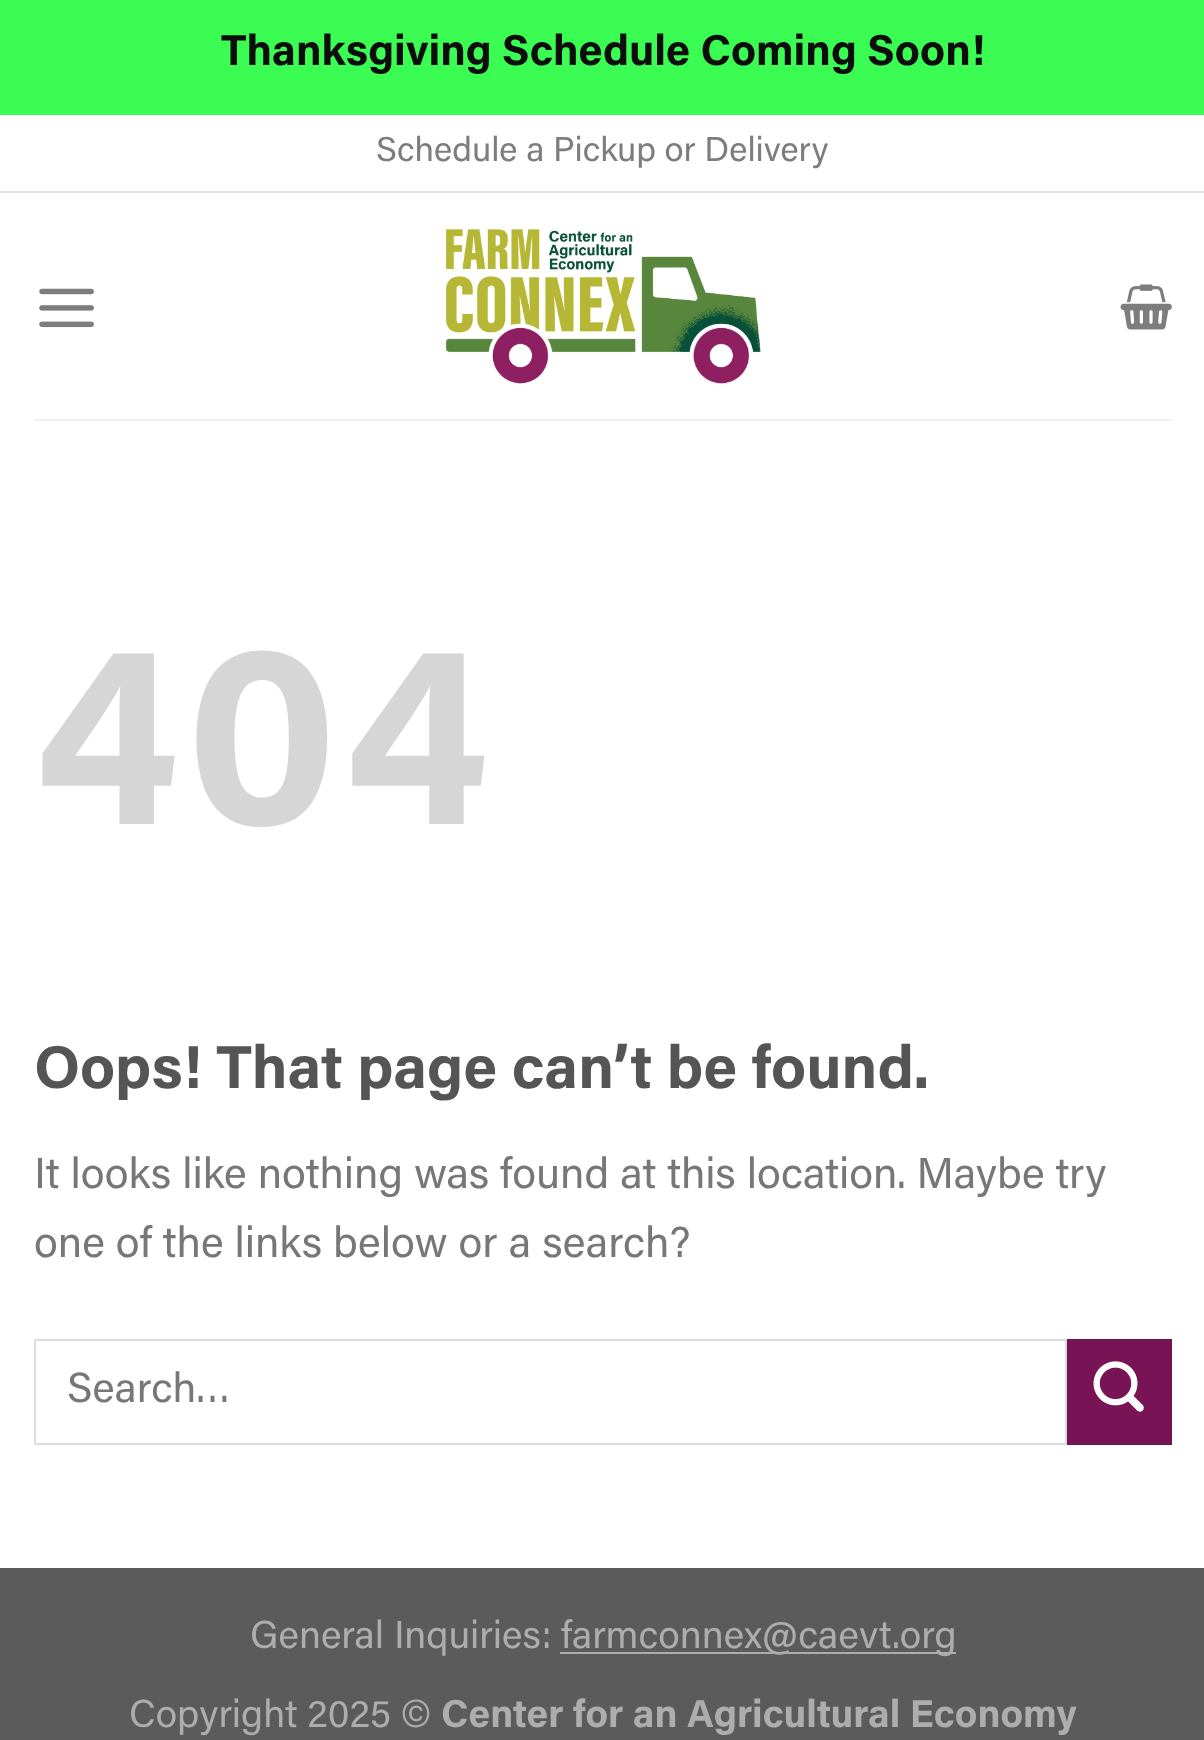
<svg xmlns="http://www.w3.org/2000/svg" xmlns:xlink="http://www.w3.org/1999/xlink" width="1204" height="1740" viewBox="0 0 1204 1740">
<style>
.cls-1{font:bold 43.2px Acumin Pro;fill:#0d0d0d}
.cls-2{font:34.5px Acumin Pro;fill:#7d7d7d}
.cls-3{font:bold 259px Acumin Pro;fill:#d6d6d6}
.cls-4{font:bold 60.5px Acumin Pro;fill:#555555}
.cls-5{font:43.2px Acumin Pro;fill:#777777}
.cls-6{font:42px Acumin Pro;fill:#777777}
.cls-7{font:38.9px Acumin Pro;fill:#adadad}
.cls-8{font:bold 38.9px Acumin Pro;fill:#adadad}
</style>
<rect width="100%" height="100%" fill="#ffffff"/>
<rect fill="#3bfc52" x="0" y="0" width="1204" height="115"/>
<rect fill="#e4e4e4" x="0" y="191" width="1204" height="2"/>
<image xlink:href="image0.png" x="39" y="288" width="55" height="40"/>
<image xlink:href="image1.png" x="445" y="229" width="316" height="155"/>
<image xlink:href="image2.png" x="1120" y="284" width="52" height="46"/>
<rect fill="#f1f1f1" x="34" y="419" width="1138" height="2"/>
<rect fill="none" stroke="#dddddd" stroke-width="2" x="35" y="1340" width="1031" height="104"/>
<rect fill="#781355" stroke="#721251" stroke-width="2" x="1068" y="1340" width="103" height="104"/>
<image xlink:href="image3.png" x="1093" y="1361" width="51" height="51"/>
<rect fill="#5b5b5b" x="0" y="1568" width="1204" height="172"/>
<rect fill="#adadad" x="560" y="1652" width="396" height="2"/>
<text class="cls-1" x="221" y="65">Thanksgiving Schedule Coming Soon!</text>
<text class="cls-2" x="376" y="161">Schedule a Pickup or Delivery</text>
<text class="cls-3" x="34" y="824">404</text>
<text class="cls-4" x="34" y="1088">Oops! That page can’t be found.</text>
<text class="cls-5"><tspan x="34" y="1188">It looks like nothing was found at this location. Maybe try</tspan><tspan x="34" y="1257">one of the links below or a search?</tspan></text>
<text class="cls-6" x="67" y="1402">Search…</text>
<text class="cls-7" x="250" y="1648">General Inquiries:</text>
<text class="cls-7" x="561" y="1648">farmconnex@caevt.org</text>
<text class="cls-7" x="129" y="1727">Copyright 2025 ©</text>
<text class="cls-8" x="441" y="1727">Center for an Agricultural Economy</text>
</svg>
